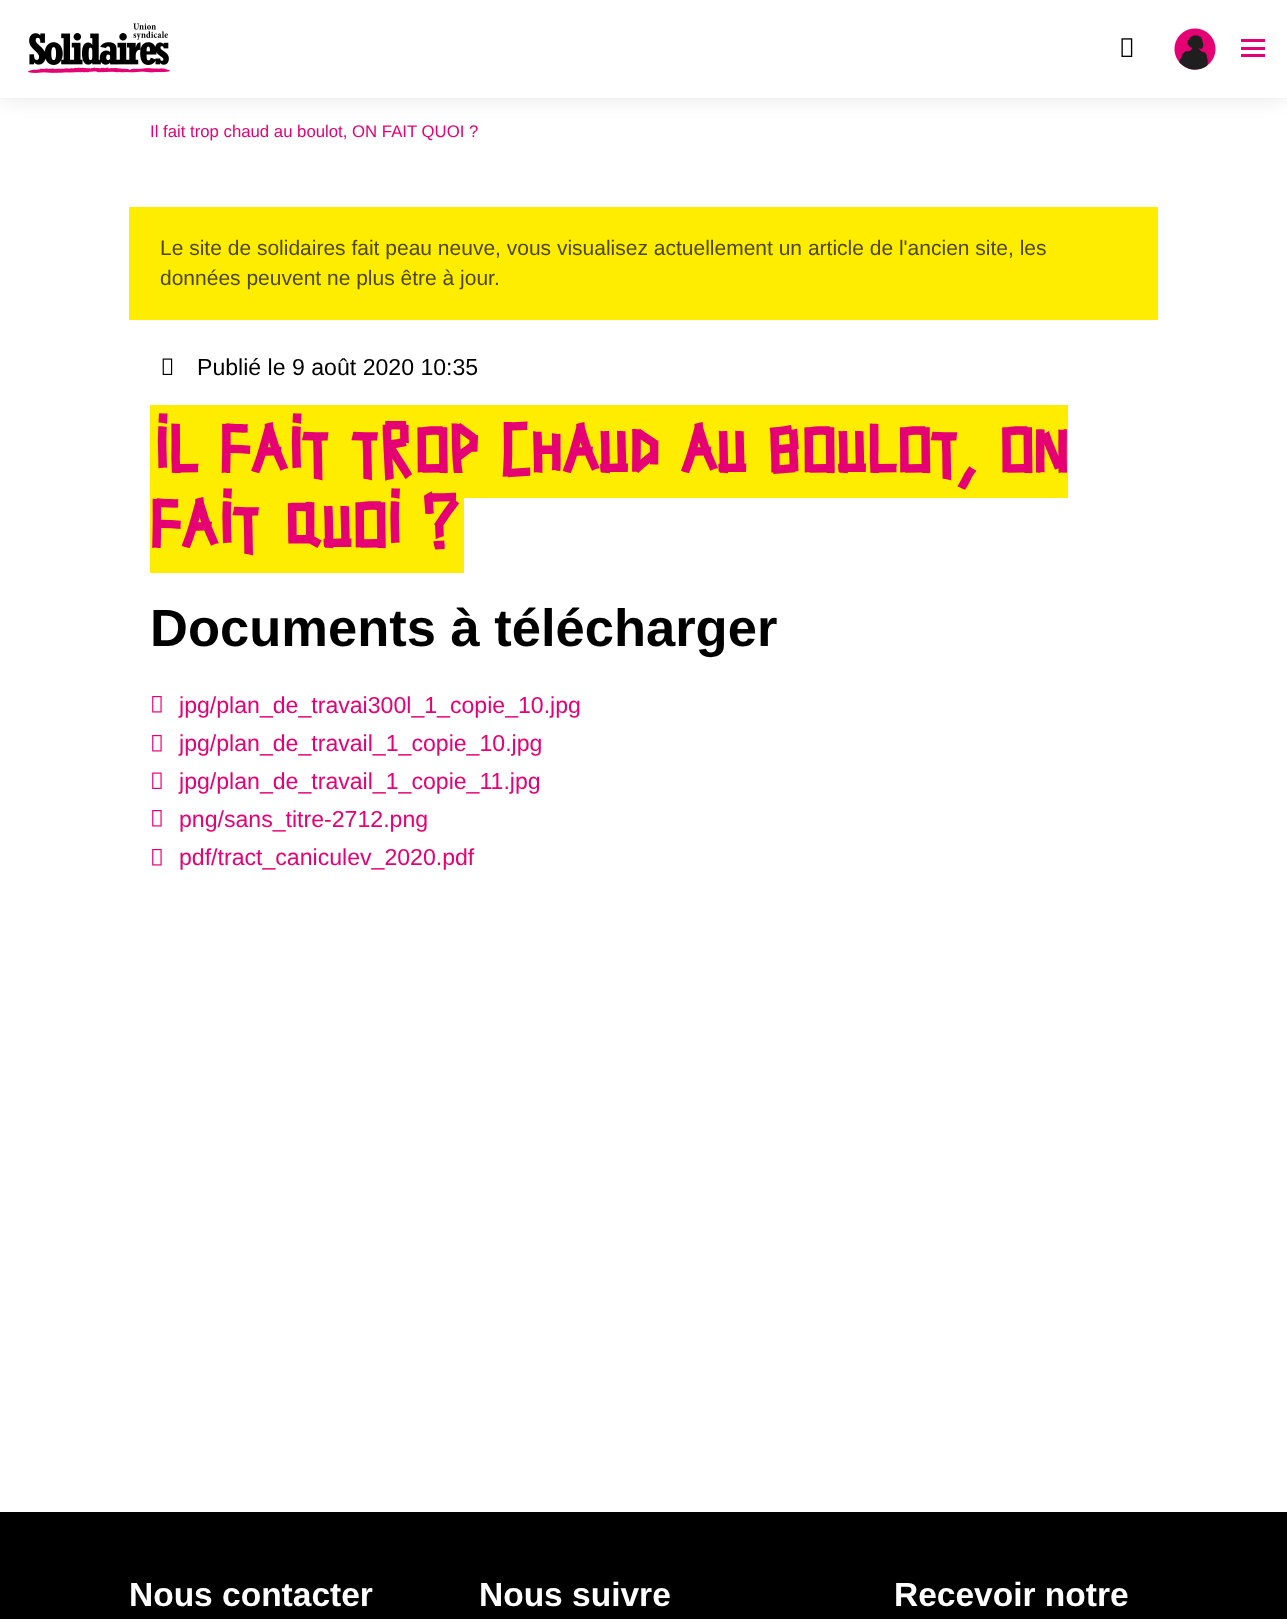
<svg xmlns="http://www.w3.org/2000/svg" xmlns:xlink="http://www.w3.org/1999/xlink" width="1287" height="1619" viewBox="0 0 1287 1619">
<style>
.cls-1{font:16.75px Liberation Sans;fill:#e50073}
.cls-2{font:21px Liberation Sans;fill:#4d4700}
.cls-3{font:23.1px Liberation Sans;fill:#000000}
.cls-4{font:63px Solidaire;fill:#e50073}
.cls-5{font:bold 52.5px Liberation Sans;fill:#000000}
.cls-6{font:23.1px Liberation Sans;fill:#e50073}
.cls-7{font:bold 33.5px Liberation Sans;fill:#ffffff}
</style>
<rect width="100%" height="100%" fill="#ffffff"/>
<rect fill="none" stroke="#fcfcfc" stroke-width="2" x="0" y="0" width="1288" height="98"/>
<rect fill="#000000" fill-opacity="0.1" filter="blur(10.5px)" x="3" y="5" width="1281" height="93"/>
<rect fill="#ffffff" x="0" y="0" width="1287" height="98"/>
<image xlink:href="image0.png" x="28" y="23" width="142" height="50"/>
<image xlink:href="image1.png" x="1121" y="38" width="12" height="19"/>
<image xlink:href="image2.png" x="1174" y="28" width="42" height="42"/>
<rect fill="#e50073" x="1241" y="39" width="24" height="3"/>
<rect fill="#e50073" x="1241" y="47" width="24" height="3"/>
<rect fill="#e50073" x="1241" y="54" width="24" height="3"/>
<rect fill="#ffed00" x="129" y="207" width="1029" height="113"/>
<image xlink:href="image3.png" x="162" y="358" width="11" height="17"/>
<rect fill="#ffed00" x="150" y="405" width="918" height="93"/>
<rect fill="#ffed00" x="150" y="498" width="314" height="75"/>
<image xlink:href="image4.png" x="152" y="696" width="10" height="17"/>
<image xlink:href="image4.png" x="152" y="735" width="10" height="17"/>
<image xlink:href="image5.png" x="152" y="772" width="10" height="17"/>
<image xlink:href="image4.png" x="152" y="810" width="10" height="17"/>
<image xlink:href="image4.png" x="152" y="849" width="10" height="17"/>
<rect fill="#000000" x="0" y="1512" width="1287" height="107"/>
<text class="cls-1" x="150" y="137">Il fait trop chaud au boulot, ON FAIT QUOI ?</text>
<text class="cls-2"><tspan x="160" y="255">Le site de solidaires fait peau neuve, vous visualisez actuellement un article de l'ancien site, les</tspan><tspan x="160" y="285">données peuvent ne plus être à jour.</tspan></text>
<text class="cls-3" x="197" y="375">Publié le 9 août 2020 10:35</text>
<text class="cls-4" x="154" y="473">IL FAIT TROP CHAUD AU BOULOT, ON</text>
<text class="cls-4" x="150" y="548">FAIT QUOI ?</text>
<text class="cls-5" x="150" y="646">Documents à télécharger</text>
<text class="cls-6"><tspan x="179" y="713">jpg/plan_de_travai300l_1_copie_10.jpg</tspan><tspan x="179" y="751">jpg/plan_de_travail_1_copie_10.jpg</tspan><tspan x="179" y="789">jpg/plan_de_travail_1_copie_11.jpg</tspan><tspan x="179" y="827">png/sans_titre-2712.png</tspan><tspan x="179" y="865">pdf/tract_caniculev_2020.pdf</tspan></text>
<text class="cls-7" x="129" y="1606">Nous contacter</text>
<text class="cls-7" x="479" y="1606">Nous suivre</text>
<text class="cls-7" x="894" y="1606">Recevoir notre</text>
</svg>
